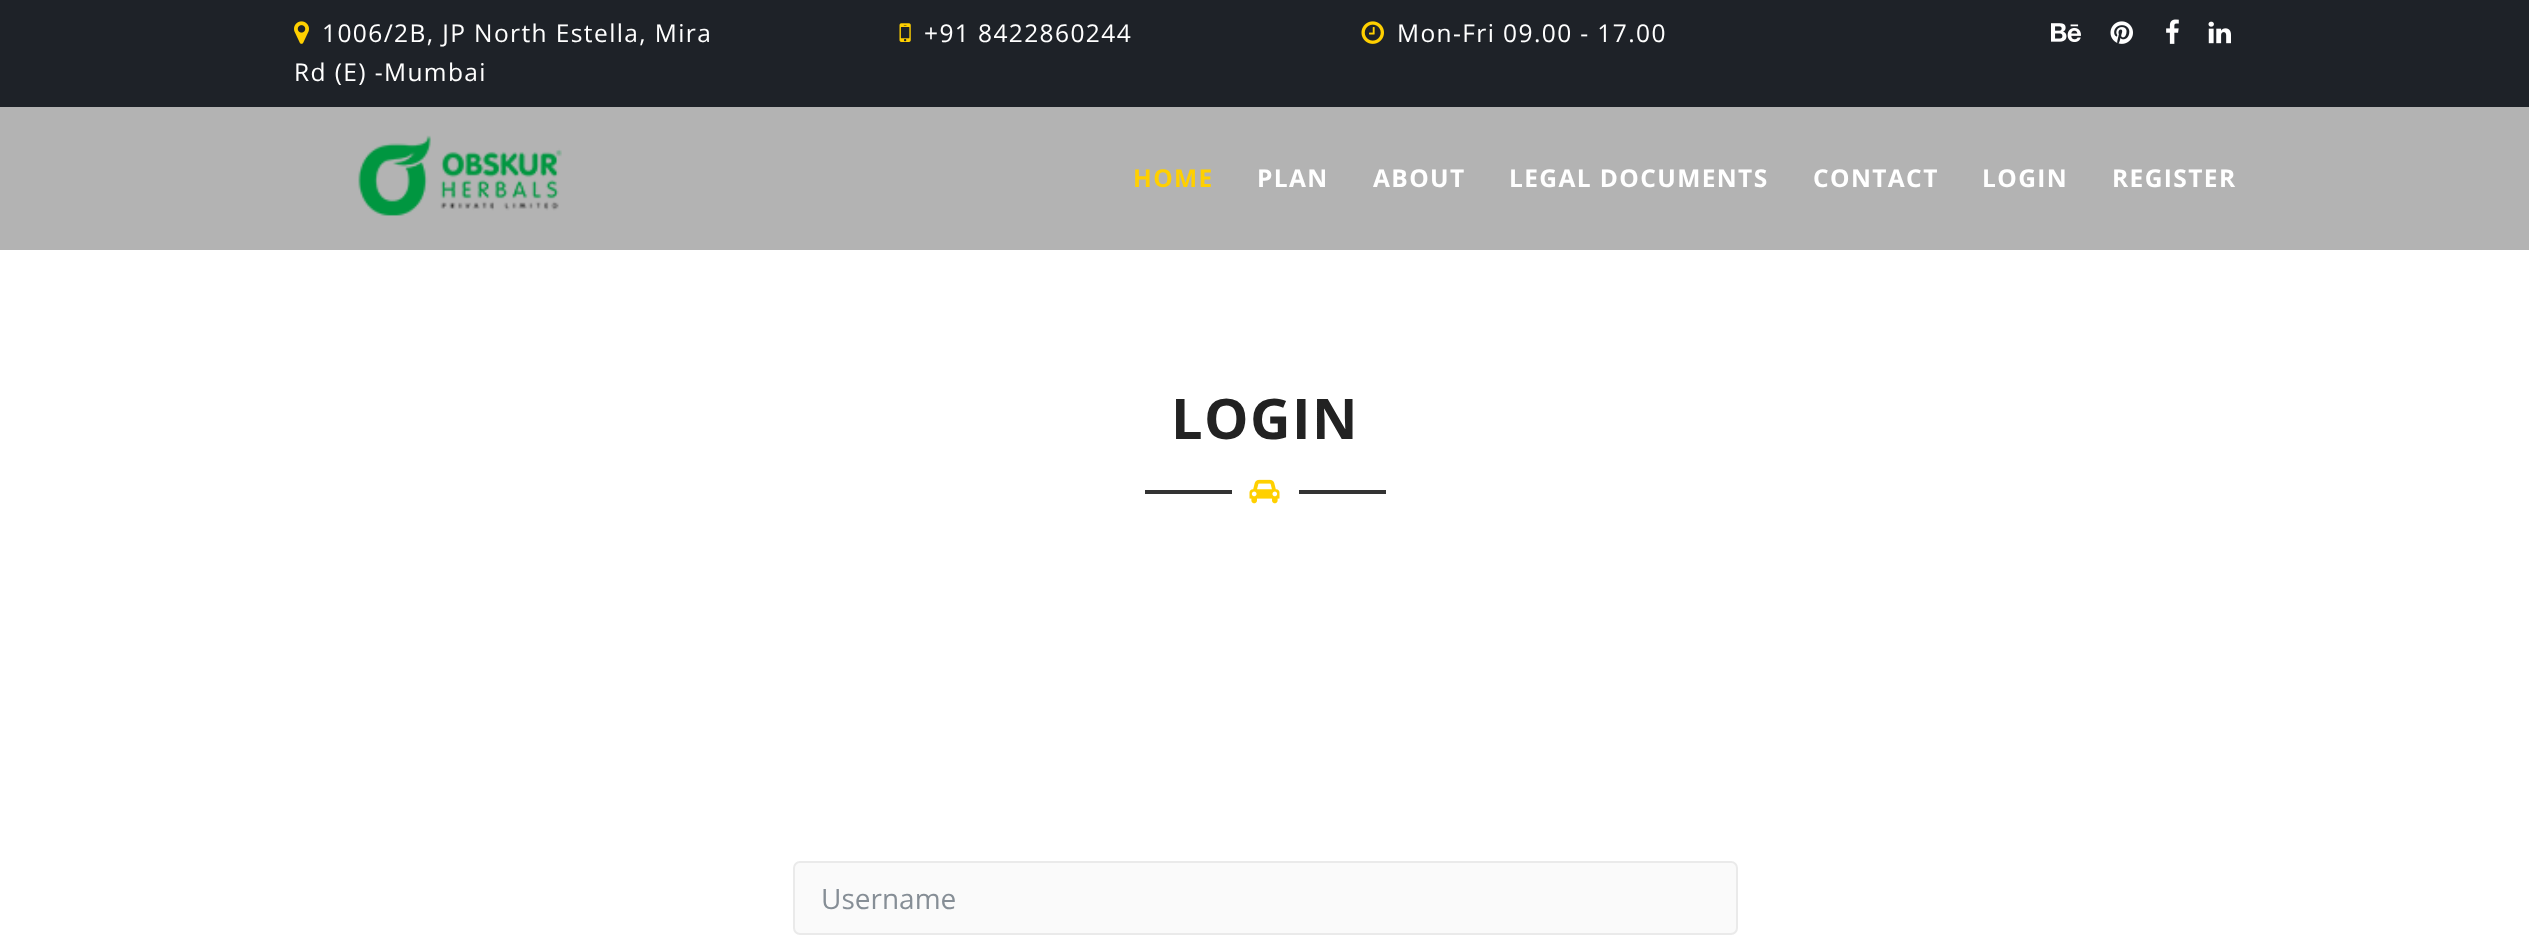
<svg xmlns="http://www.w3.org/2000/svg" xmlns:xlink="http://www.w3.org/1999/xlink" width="2529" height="948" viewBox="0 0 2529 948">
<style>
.cls-1{font:24.5px Open Sans;letter-spacing:1.4px;fill:#ffffff}
.cls-2{font:bold 24.5px Open Sans;letter-spacing:1.4px;fill:#ffd000}
.cls-3{font:bold 24.5px Open Sans;letter-spacing:1.4px;fill:#ffffff}
.cls-4{font:bold 56px Open Sans;letter-spacing:1.4px;fill:#222222}
.cls-5{font:28px Open Sans;fill:#868e96}
</style>
<rect width="100%" height="100%" fill="#ffffff"/>
<rect fill="#1e2228" x="0" y="0" width="2529" height="107"/>
<image xlink:href="image0.png" x="294" y="21" width="15" height="23"/>
<image xlink:href="image1.png" x="899" y="23" width="12" height="19"/>
<image xlink:href="image2.png" x="1361" y="21" width="23" height="23"/>
<image xlink:href="image3.png" x="2051" y="23" width="30" height="19"/>
<image xlink:href="image4.png" x="2110" y="21" width="23" height="23"/>
<image xlink:href="image5.png" x="2166" y="19" width="13" height="25"/>
<image xlink:href="image6.png" x="2208" y="21" width="23" height="23"/>
<rect fill="#b3b3b3" x="0" y="107" width="2529" height="143"/>
<image xlink:href="image7.png" x="358" y="135" width="204" height="81"/>
<rect fill="#333333" x="1145" y="490" width="87" height="4"/>
<image xlink:href="image8.png" x="1249" y="479" width="31" height="25"/>
<rect fill="#333333" x="1299" y="490" width="87" height="4"/>
<rect fill="#fafafa" stroke="#eaeaea" stroke-width="2" x="794" y="862" width="943" height="72" rx="6"/>
<text class="cls-1" x="322" y="42">1006/2B, JP North Estella, Mira</text>
<text class="cls-1" x="294" y="81">Rd (E) -Mumbai</text>
<text class="cls-1" x="924" y="42">+91 8422860244</text>
<text class="cls-1" x="1397" y="42">Mon-Fri 09.00 - 17.00</text>
<text class="cls-2" x="1133" y="187">HOME</text>
<text class="cls-3" x="1257" y="187">PLAN</text>
<text class="cls-3" x="1373" y="187">ABOUT</text>
<text class="cls-3" x="1509" y="187">LEGAL DOCUMENTS</text>
<text class="cls-3" x="1813" y="187">CONTACT</text>
<text class="cls-3" x="1982" y="187">LOGIN</text>
<text class="cls-3" x="2112" y="187">REGISTER</text>
<text class="cls-4" x="1171" y="439">LOGIN</text>
<text class="cls-5" x="821" y="909">Username</text>
</svg>
